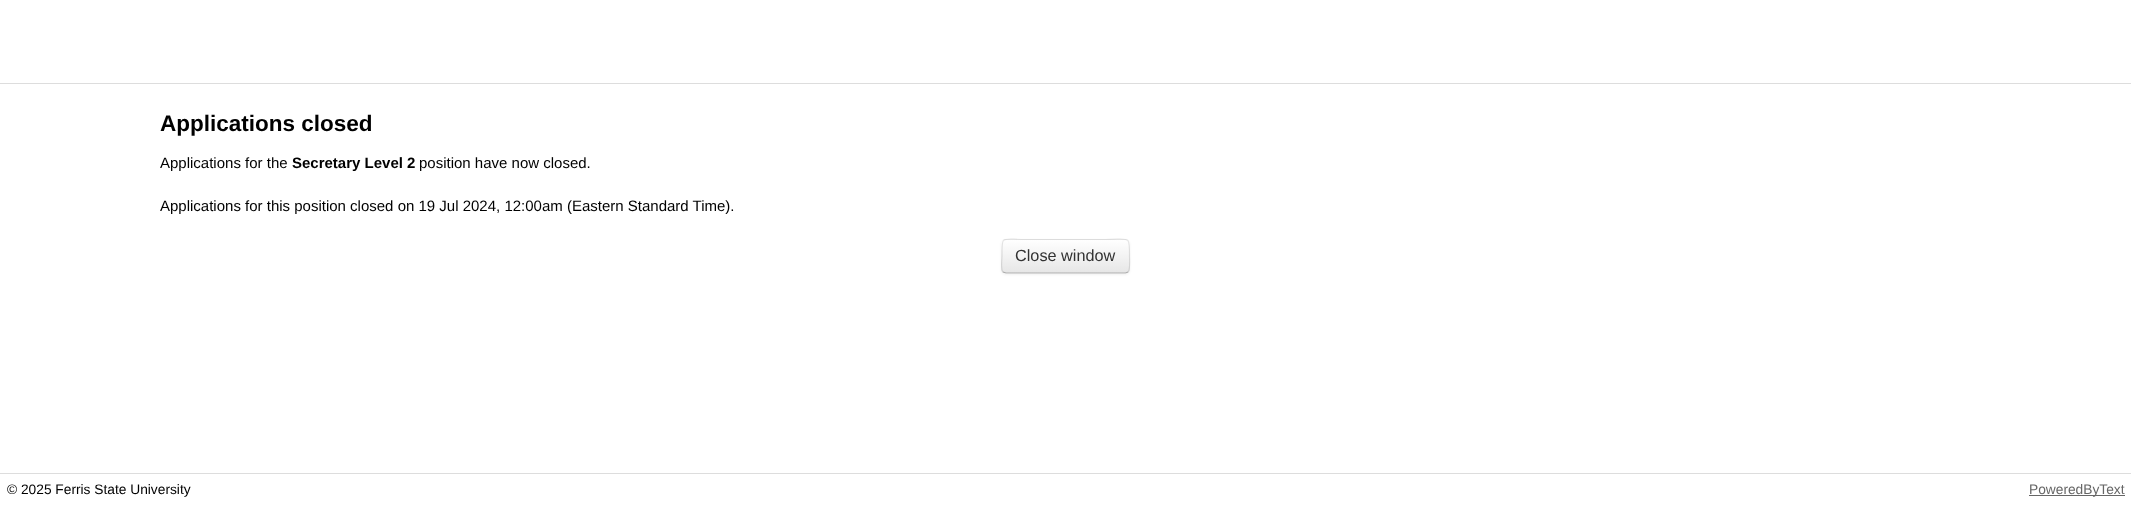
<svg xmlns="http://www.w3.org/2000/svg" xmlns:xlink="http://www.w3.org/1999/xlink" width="2131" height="505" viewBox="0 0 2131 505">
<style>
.cls-1{font:bold 22.5px Liberation Sans;fill:#000000}
.cls-2{font:15px Liberation Sans;fill:#000000}
.cls-3{font:bold 15px Liberation Sans;fill:#000000}
.cls-4{font:16.25px Liberation Sans;fill:#333333}
.cls-5{font:13.75px Liberation Sans;fill:#000000}
.cls-6{font:13.75px Liberation Sans;fill:#666666}
</style>
<defs>
<clipPath id="clip1"><rect x="1001" y="239" width="129" height="35" rx="5"/></clipPath>
<linearGradient id="g1" gradientUnits="userSpaceOnUse" x1="1066" y1="240" x2="1066" y2="273"><stop offset="0" stop-color="#ffffff"/><stop offset="1" stop-color="#e6e6e6"/></linearGradient>
</defs>
<rect width="100%" height="100%" fill="#ffffff"/>
<rect fill="#dddddd" x="0" y="83" width="2131" height="1"/>
<rect fill="#000000" fill-opacity="0.05" filter="blur(1px)" x="1001" y="240" width="129" height="35" rx="5"/>
<rect fill="#f5f5f5" x="1001" y="239" width="129" height="35" rx="5"/>
<g clip-path="url(#clip1)">
<rect fill="url(#g1)" x="1001" y="240" width="129" height="33"/>
</g>
<path fill="none" stroke="#000000" stroke-opacity="0.25" stroke-width="1.2" d="M1128 272L1125.5 273H1026H1006L1003 272"/>
<path fill="none" stroke="#000000" stroke-opacity="0.1" stroke-width="1.2" d="M1003 272C1000.5 269.5 1002 259.5 1002 256C1002 234.5 1000.5 239.5 1026 239.5H1105C1130.5 239.5 1129.5 234.5 1129.5 256C1129.5 259.5 1130.5 269.5 1128 272"/>
<rect fill="#dddddd" x="0" y="473" width="2131" height="1"/>
<rect fill="#666666" x="2029" y="495" width="96" height="1"/>
<text class="cls-1" x="160" y="131">Applications closed</text>
<text class="cls-2" x="160" y="168">Applications for the</text>
<text class="cls-3" x="292" y="168">Secretary Level 2</text>
<text class="cls-2" x="419" y="168">position have now closed.</text>
<text class="cls-2" x="160" y="211">Applications for this position closed on 19 Jul 2024, 12:00am (Eastern Standard Time).</text>
<text class="cls-4" x="1015" y="261">Close window</text>
<text class="cls-5" x="7" y="494">© 2025 Ferris State University</text>
<text class="cls-6" x="2029" y="494">PoweredByText</text>
</svg>
